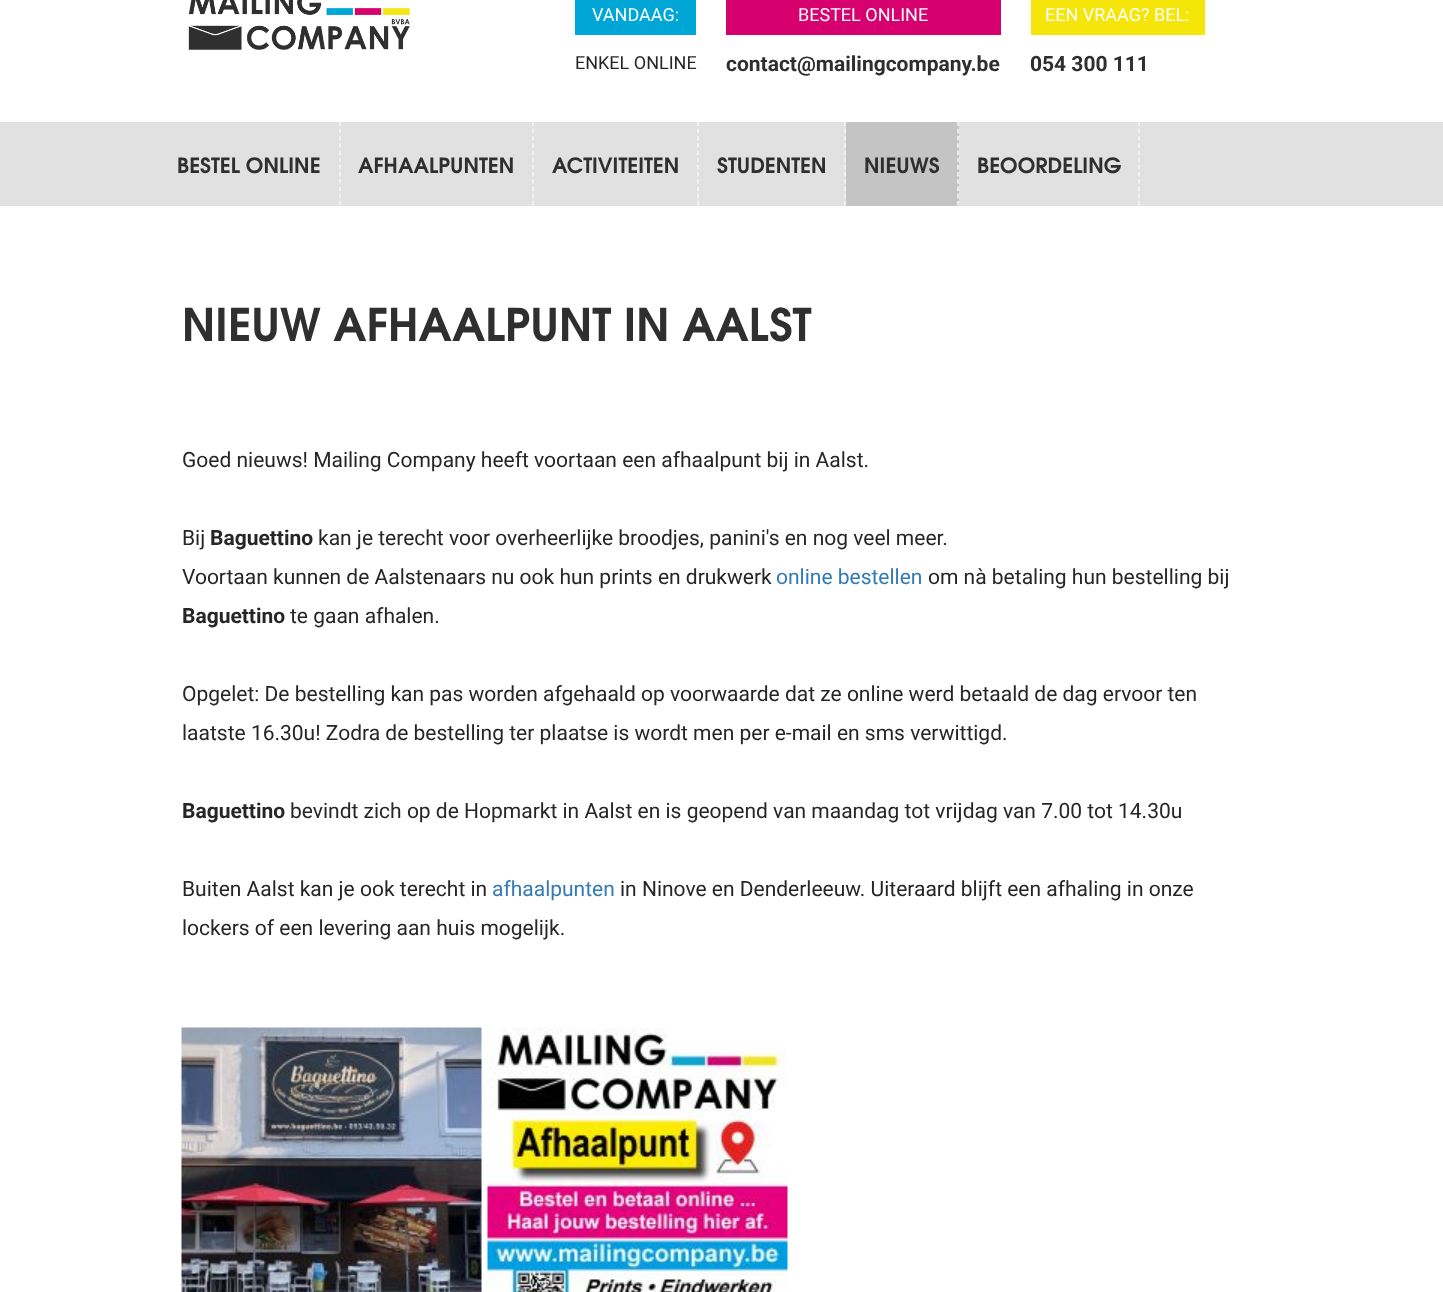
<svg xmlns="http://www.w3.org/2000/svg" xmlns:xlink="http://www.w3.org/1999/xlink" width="1443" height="1292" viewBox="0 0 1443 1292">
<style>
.cls-1{font:18px Roboto;fill:#ffffff}
.cls-2{font:18px Roboto;fill:#262626}
.cls-3{font:bold 21px Roboto;fill:#302f2f}
.cls-4{font:bold 21px TeX Gyre Adventor;fill:#302f2f}
.cls-5{font:bold 45px TeX Gyre Adventor;fill:#302f2f}
.cls-6{font:21px Roboto;fill:#262626}
.cls-7{font:bold 21px Roboto;fill:#262626}
.cls-8{font:21px Roboto;fill:#337ab7}
</style>
<rect width="100%" height="100%" fill="#ffffff"/>
<image xlink:href="image0.png" x="188" y="0" width="222" height="50"/>
<rect fill="#00a6d6" x="575" y="0" width="121" height="35"/>
<rect fill="#d6006e" x="726" y="0" width="275" height="35"/>
<rect fill="#f6e509" x="1031" y="0" width="174" height="35"/>
<rect fill="#e1e1e1" x="0" y="122" width="1443" height="84"/>
<path fill="none" stroke="#f8f8f9" stroke-width="1.5" stroke-dasharray="4.5 2.73" d="M340 121.5V205.5"/>
<path fill="none" stroke="#f8f8f9" stroke-width="1.5" stroke-dasharray="4.5 2.73" d="M533 121.5V205.5"/>
<path fill="none" stroke="#f8f8f9" stroke-width="1.5" stroke-dasharray="4.5 2.73" d="M698 121.5V205.5"/>
<path fill="none" stroke="#f8f8f9" stroke-width="1.5" stroke-dasharray="4.5 2.73" d="M845 121.5V205.5"/>
<rect fill="#c4c4c4" x="846" y="122" width="113" height="84"/>
<path fill="none" stroke="#f8f8f9" stroke-width="1.5" stroke-dasharray="4.5 2.73" d="M958 121.5V205.5"/>
<path fill="none" stroke="#f8f8f9" stroke-width="1.5" stroke-dasharray="4.5 2.73" d="M1139 121.5V205.5"/>
<image xlink:href="image1.png" x="181" y="1027" width="301" height="265"/>
<image xlink:href="image2.png" x="487" y="1027" width="301" height="265"/>
<text class="cls-1" x="592" y="21">VANDAAG:</text>
<text class="cls-2" x="575" y="69">ENKEL ONLINE</text>
<text class="cls-1" x="798" y="21">BESTEL ONLINE</text>
<text class="cls-3" x="726" y="71">contact@mailingcompany.be</text>
<text class="cls-1" x="1045" y="21">EEN VRAAG? BEL:</text>
<text class="cls-3" x="1030" y="71">054 300 111</text>
<text class="cls-4" x="177" y="173">BESTEL ONLINE</text>
<text class="cls-4" x="358" y="173">AFHAALPUNTEN</text>
<text class="cls-4" x="552" y="173">ACTIVITEITEN</text>
<text class="cls-4" x="717" y="173">STUDENTEN</text>
<text class="cls-4" x="864" y="173">NIEUWS</text>
<text class="cls-4" x="977" y="173">BEOORDELING</text>
<text class="cls-5" x="182" y="341">NIEUW AFHAALPUNT IN AALST</text>
<text class="cls-6" x="182" y="467">Goed nieuws! Mailing Company heeft voortaan een afhaalpunt bij in Aalst.</text>
<text class="cls-6" x="182" y="545">Bij</text>
<text class="cls-7" x="210" y="545">Baguettino</text>
<text class="cls-6" x="318" y="545">kan je terecht voor overheerlijke broodjes, panini's en nog veel meer.</text>
<text class="cls-6" x="182" y="584">Voortaan kunnen de Aalstenaars nu ook hun prints en drukwerk</text>
<text class="cls-8" x="776" y="584">online bestellen</text>
<text class="cls-6" x="928" y="584">om nà betaling hun bestelling bij</text>
<text class="cls-7" x="182" y="623">Baguettino</text>
<text class="cls-6" x="290" y="623">te gaan afhalen.</text>
<text class="cls-6"><tspan x="182" y="701">Opgelet: De bestelling kan pas worden afgehaald op voorwaarde dat ze online werd betaald de dag ervoor ten</tspan><tspan x="182" y="740">laatste 16.30u! Zodra de bestelling ter plaatse is wordt men per e-mail en sms verwittigd.</tspan></text>
<text class="cls-7" x="182" y="818">Baguettino</text>
<text class="cls-6" x="290" y="818">bevindt zich op de Hopmarkt in Aalst en is geopend van maandag tot vrijdag van 7.00 tot 14.30u</text>
<text class="cls-6" x="182" y="896">Buiten Aalst kan je ook terecht in</text>
<text class="cls-8" x="492" y="896">afhaalpunten</text>
<text class="cls-6" x="620" y="896">in Ninove en Denderleeuw. Uiteraard blijft een afhaling in onze</text>
<text class="cls-6" x="182" y="935">lockers of een levering aan huis mogelijk.</text>
</svg>
